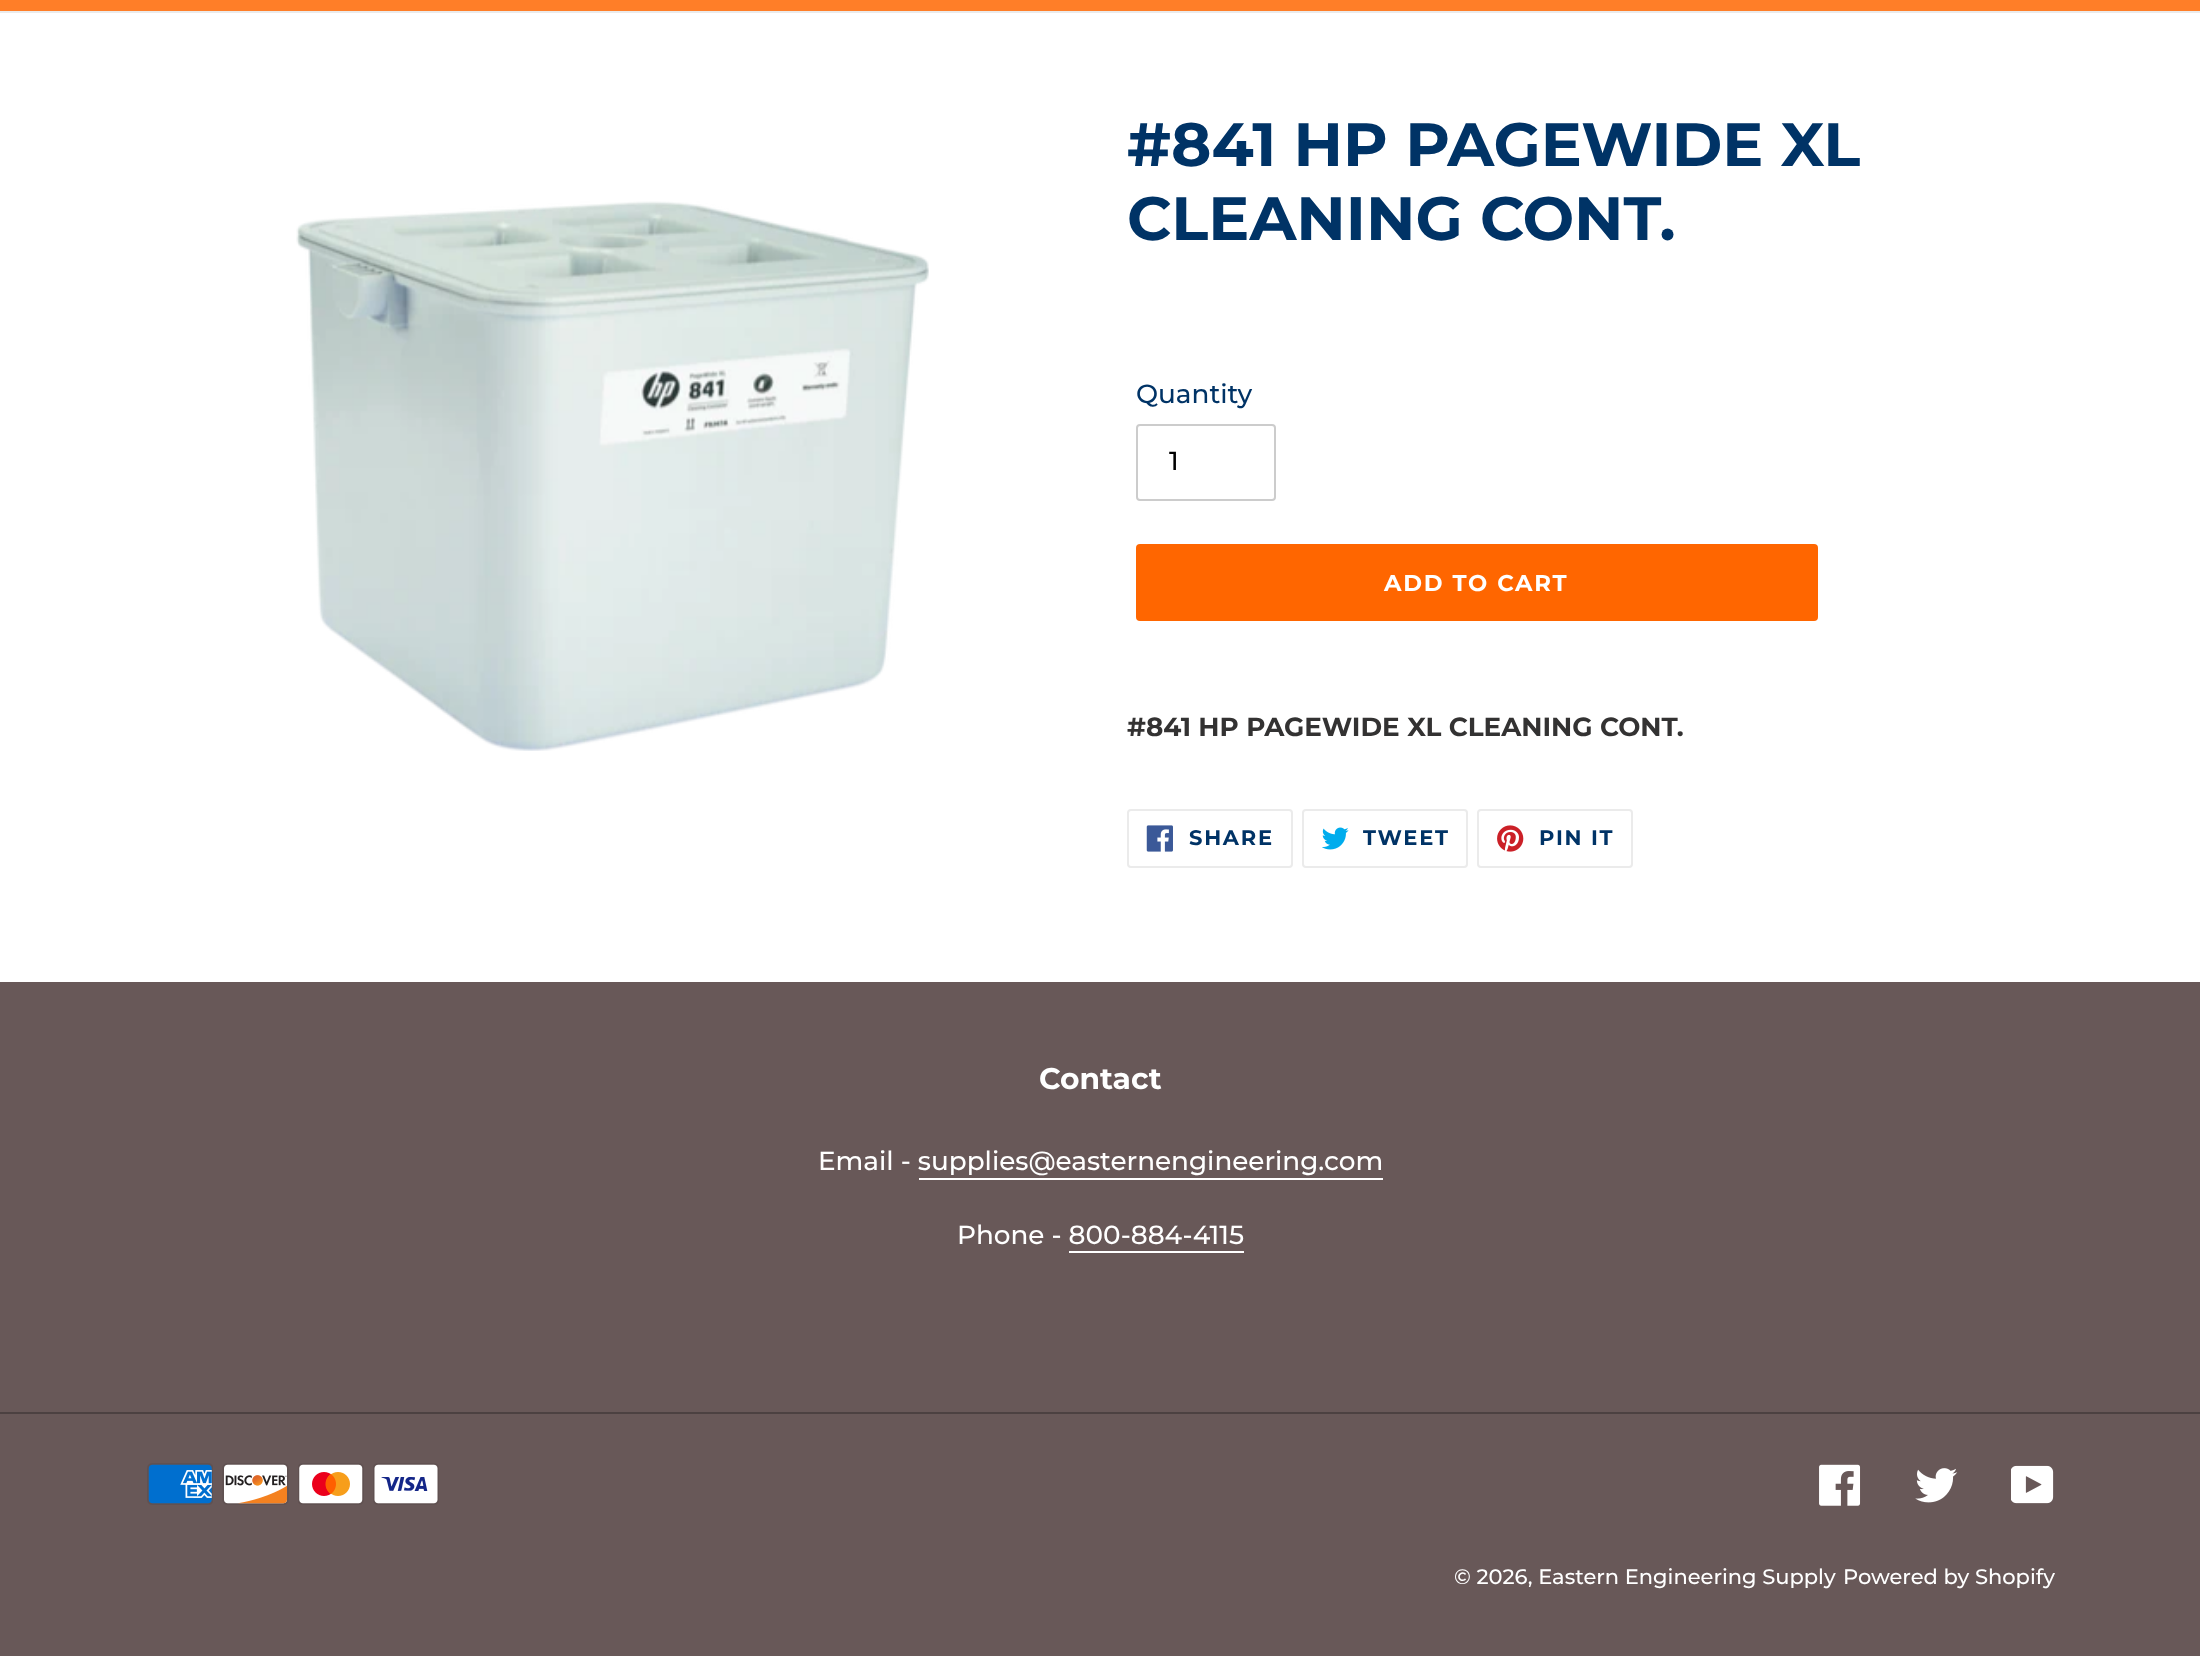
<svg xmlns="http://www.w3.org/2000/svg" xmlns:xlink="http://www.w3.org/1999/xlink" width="2200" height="1656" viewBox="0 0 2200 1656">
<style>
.cls-1{font:bold 61.25px Montserrat;fill:#003366}
.cls-2{font:500 26.25px Montserrat;fill:#003366}
.cls-3{font:500 26.25px Montserrat;fill:#000000}
.cls-4{font:bold 22.75px Montserrat;letter-spacing:1.75px;fill:#ffffff}
.cls-5{font:bold 26.25px Montserrat;fill:#333232}
.cls-6{font:bold 21px Montserrat;letter-spacing:1.75px;fill:#003366}
.cls-7{font:bold 29.75px Montserrat;fill:#ffffff}
.cls-8{font:500 26.25px Montserrat;fill:#ffffff}
.cls-9{font:500 21px Montserrat;fill:#ffffff}
</style>
<rect width="100%" height="100%" fill="#ffffff"/>
<rect fill="#ff7e28" x="0" y="0" width="2200" height="11"/>
<rect fill="#ebebeb" x="0" y="11" width="2200" height="2"/>
<image xlink:href="image0.png" x="296" y="201" width="633" height="550"/>
<rect fill="none" stroke="#cccccc" stroke-width="2" x="1137" y="425" width="138" height="75" rx="3"/>
<rect fill="#ff6600" x="1136" y="544" width="682" height="77" rx="4"/>
<rect fill="none" stroke="#ebebeb" stroke-width="2" x="1128" y="810" width="164" height="57" rx="3"/>
<image xlink:href="image1.png" x="1146" y="825" width="27" height="27"/>
<rect fill="none" stroke="#ebebeb" stroke-width="2" x="1303" y="810" width="164" height="57" rx="3"/>
<image xlink:href="image2.png" x="1322" y="827" width="27" height="23"/>
<rect fill="none" stroke="#ebebeb" stroke-width="2" x="1478" y="810" width="154" height="57" rx="3"/>
<image xlink:href="image3.png" x="1497" y="825" width="27" height="27"/>
<rect fill="#685858" x="0" y="982" width="2200" height="674"/>
<rect fill="#ffffff" x="919" y="1178" width="464" height="2"/>
<rect fill="#ffffff" x="1069" y="1251" width="175" height="2"/>
<rect fill="#4c4141" x="0" y="1412" width="2200" height="2"/>
<image xlink:href="image4.png" x="147" y="1463" width="66" height="42"/>
<image xlink:href="image5.png" x="222" y="1463" width="67" height="42"/>
<image xlink:href="image6.png" x="298" y="1463" width="66" height="42"/>
<image xlink:href="image7.png" x="373" y="1463" width="66" height="42"/>
<image xlink:href="image8.png" x="1819" y="1464" width="42" height="42"/>
<image xlink:href="image9.png" x="1915" y="1468" width="43" height="35"/>
<image xlink:href="image10.png" x="2011" y="1465" width="43" height="39"/>
<text class="cls-1"><tspan x="1127" y="166">#841 HP PAGEWIDE XL</tspan><tspan x="1127" y="240">CLEANING CONT.</tspan></text>
<text class="cls-2" x="1136" y="403">Quantity</text>
<text class="cls-3" x="1169" y="470">1</text>
<text class="cls-4" x="1384" y="591">ADD TO CART</text>
<text class="cls-5" x="1127" y="736">#841 HP PAGEWIDE XL CLEANING CONT.</text>
<text class="cls-6" x="1189" y="845">SHARE</text>
<text class="cls-6" x="1363" y="845">TWEET</text>
<text class="cls-6" x="1539" y="845">PIN IT</text>
<text class="cls-7" x="1039" y="1089">Contact</text>
<text class="cls-8" x="818" y="1170">Email - supplies@easternengineering.com</text>
<text class="cls-8" x="957" y="1244">Phone - 800-884-4115</text>
<text class="cls-9" x="1454" y="1584">© 2026, Eastern Engineering Supply</text>
<text class="cls-9" x="1843" y="1584">Powered by Shopify</text>
</svg>
